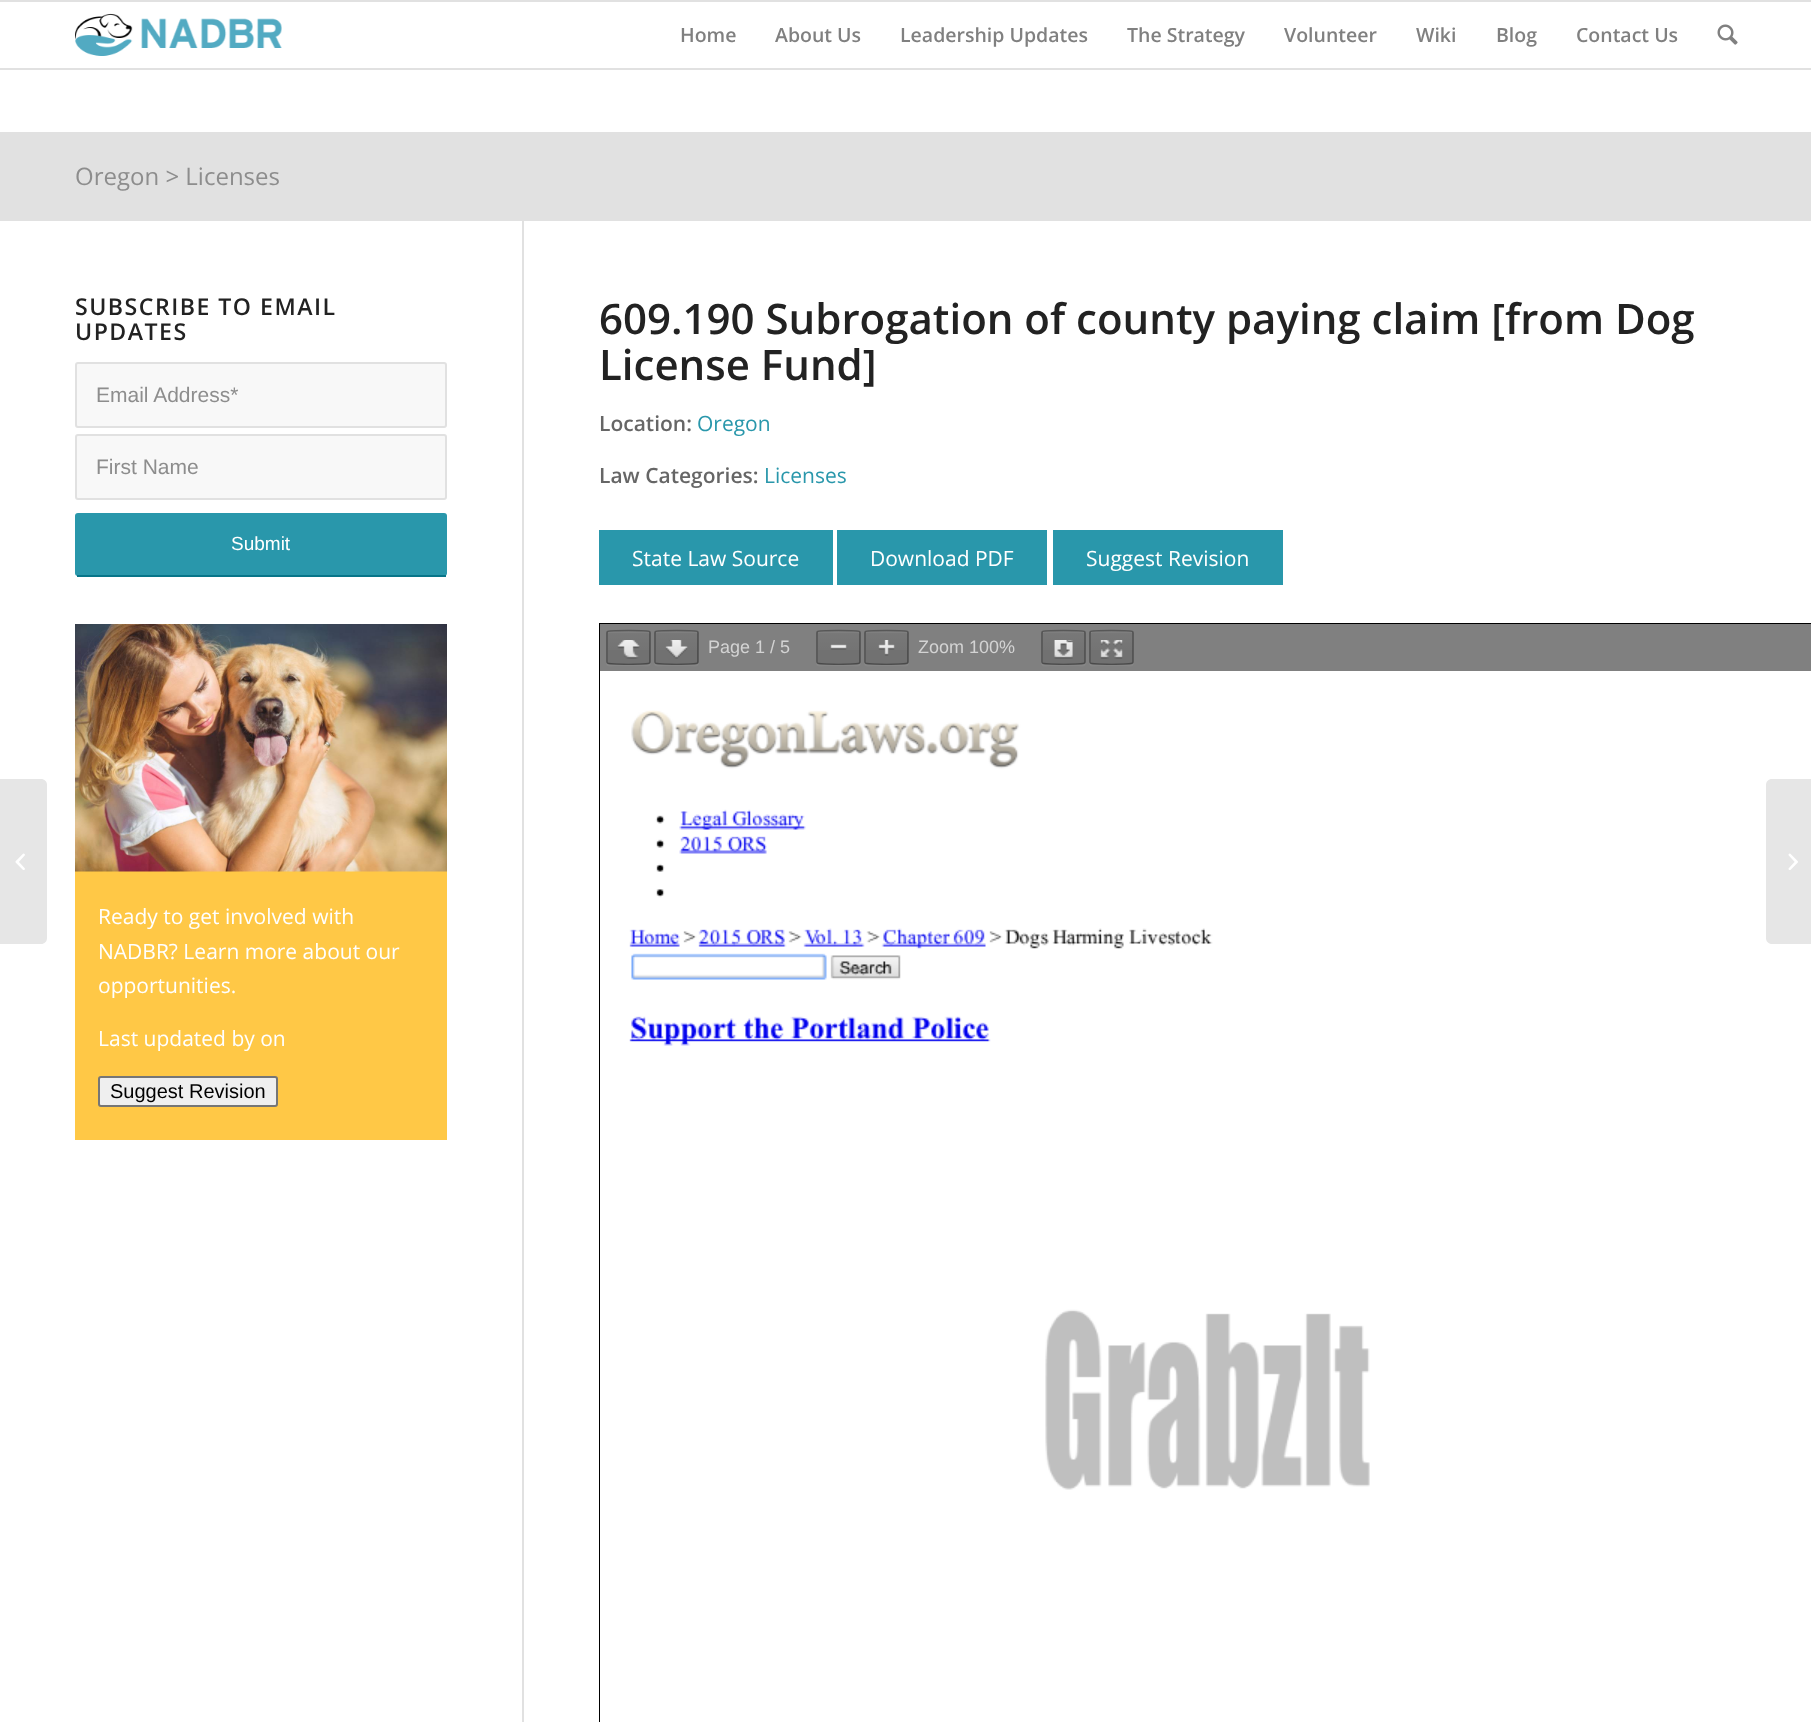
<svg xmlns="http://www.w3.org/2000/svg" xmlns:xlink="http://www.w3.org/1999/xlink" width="1811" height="1722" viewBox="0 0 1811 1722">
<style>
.cls-1{font:600 19.5px Open Sans;fill:#808080}
.cls-2{font:24px Open Sans;fill:#8d8d8d}
.cls-3{font:600 23.1px Open Sans;letter-spacing:1.5px;fill:#222222}
.cls-4{font:21px Liberation Sans;fill:#8d8d8d}
.cls-5{font:19px Liberation Sans;fill:#ffffff}
.cls-6{font:21px Open Sans;fill:#ffffff}
.cls-7{font:20px Liberation Sans;fill:#000000}
.cls-8{font:600 42px Open Sans;fill:#222222}
.cls-9{font:600 21px Open Sans;fill:#666666}
.cls-10{font:21px Open Sans;fill:#2997ab}
.cls-11{font:18px Liberation Sans;fill:#d3d3d3}
</style>
<defs>
<linearGradient id="g1" gradientUnits="userSpaceOnUse" x1="629" y1="632" x2="629" y2="663"><stop offset="0" stop-color="#ffffff" stop-opacity="0.05"/><stop offset="1" stop-color="#ffffff" stop-opacity="0"/></linearGradient>
<linearGradient id="g2" gradientUnits="userSpaceOnUse" x1="677" y1="632" x2="677" y2="663"><stop offset="0" stop-color="#ffffff" stop-opacity="0.05"/><stop offset="1" stop-color="#ffffff" stop-opacity="0"/></linearGradient>
<linearGradient id="g3" gradientUnits="userSpaceOnUse" x1="839" y1="632" x2="839" y2="663"><stop offset="0" stop-color="#ffffff" stop-opacity="0.05"/><stop offset="1" stop-color="#ffffff" stop-opacity="0"/></linearGradient>
<linearGradient id="g4" gradientUnits="userSpaceOnUse" x1="887" y1="632" x2="887" y2="663"><stop offset="0" stop-color="#ffffff" stop-opacity="0.05"/><stop offset="1" stop-color="#ffffff" stop-opacity="0"/></linearGradient>
<linearGradient id="g5" gradientUnits="userSpaceOnUse" x1="1064" y1="632" x2="1064" y2="663"><stop offset="0" stop-color="#ffffff" stop-opacity="0.05"/><stop offset="1" stop-color="#ffffff" stop-opacity="0"/></linearGradient>
<linearGradient id="g6" gradientUnits="userSpaceOnUse" x1="1112" y1="632" x2="1112" y2="663"><stop offset="0" stop-color="#ffffff" stop-opacity="0.05"/><stop offset="1" stop-color="#ffffff" stop-opacity="0"/></linearGradient>
</defs>
<rect width="100%" height="100%" fill="#ffffff"/>
<rect fill="#e1e1e1" x="0" y="0" width="1811" height="2"/>
<rect fill="#e1e1e1" x="0" y="68" width="1811" height="2"/>
<image xlink:href="image0.png" x="75" y="13" width="207" height="43"/>
<image xlink:href="image1.png" x="1717" y="24" width="21" height="21"/>
<path fill="#e6e6e6" d="M0 779H41C44.5 779 47 781.5 47 785V938C47 941.5 44.5 944 41 944H0Z"/>
<image xlink:href="image2.png" x="15" y="853" width="10" height="17"/>
<rect fill="#e1e1e1" x="0" y="132" width="1811" height="89"/>
<rect fill="#f8f8f8" stroke="#e1e1e1" stroke-width="2" x="76" y="363" width="370" height="64" rx="2"/>
<rect fill="#f8f8f8" stroke="#e1e1e1" stroke-width="2" x="76" y="435" width="370" height="64" rx="2"/>
<rect fill="#2997ab" x="75" y="513" width="372" height="63" rx="3"/>
<rect fill="#077589" x="77" y="575" width="369" height="2"/>
<rect fill="#ffc846" x="75" y="871" width="372" height="269"/>
<image xlink:href="image3.png" x="75" y="624" width="372" height="248"/>
<rect fill="#efefef" stroke="#767676" stroke-width="2" x="99" y="1077" width="178" height="29" rx="2"/>
<rect fill="#e1e1e1" x="522" y="221" width="2" height="1501"/>
<rect fill="#2997ab" x="599" y="530" width="234" height="55"/>
<rect fill="#2997ab" x="837" y="530" width="210" height="55"/>
<rect fill="#2997ab" x="1053" y="530" width="230" height="55"/>
<rect fill="none" stroke="#000000" stroke-width="2" x="600" y="624" width="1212" height="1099"/>
<rect fill="#808080" x="600" y="624" width="1211" height="47"/>
<path fill="#868686" d="M606 662C606 668 610 666 616 666H642C647 666 651 668 651 662C651 663 650 664 648 664H609C607 664 606 663 606 662Z"/>
<rect fill="#717171" x="608" y="632" width="42" height="31" rx="1.5"/>
<rect fill="url(#g1)" x="608" y="632" width="42" height="18"/>
<path fill="#7f7f7f" d="M609 633H648L650 634C650 630 644 632 642 632H616C614 632 608 630 608 634Z"/>
<path fill="none" stroke="#575757" stroke-width="1.5" d="M607.5 631.5C608.5 630 648.5 630 649.5 631.5"/>
<path fill="none" stroke="#000000" stroke-opacity="0.38" stroke-width="1.5" d="M649.5 631.5C650 632 650 632.5 650 633V661.5C650 662 650 662.5 649.5 663"/>
<path fill="none" stroke="#000000" stroke-opacity="0.42" stroke-width="1.5" d="M649.5 663C648.5 664.5 608.5 664.5 607.5 663"/>
<path fill="none" stroke="#000000" stroke-opacity="0.38" stroke-width="1.5" d="M607.5 663C607 662.5 607 662 607 661.5V633C607 632.5 607 632 607.5 631.5"/>
<image xlink:href="image4.png" x="617" y="640" width="23" height="19"/>
<path fill="#868686" d="M654 662C654 668 658 666 664 666H690C695 666 699 668 699 662C699 663 698 664 696 664H657C655 664 654 663 654 662Z"/>
<rect fill="#717171" x="656" y="632" width="42" height="31" rx="1.5"/>
<rect fill="url(#g2)" x="656" y="632" width="42" height="18"/>
<path fill="#7f7f7f" d="M657 633H696L698 634C698 630 692 632 690 632H664C662 632 656 630 656 634Z"/>
<path fill="none" stroke="#575757" stroke-width="1.5" d="M655.5 631.5C656.5 630 696.5 630 697.5 631.5"/>
<path fill="none" stroke="#000000" stroke-opacity="0.38" stroke-width="1.5" d="M697.5 631.5C698 632 698 632.5 698 633V661.5C698 662 698 662.5 697.5 663"/>
<path fill="none" stroke="#000000" stroke-opacity="0.42" stroke-width="1.5" d="M697.5 663C696.5 664.5 656.5 664.5 655.5 663"/>
<path fill="none" stroke="#000000" stroke-opacity="0.38" stroke-width="1.5" d="M655.5 663C655 662.5 655 662 655 661.5V633C655 632.5 655 632 655.5 631.5"/>
<image xlink:href="image5.png" x="665" y="640" width="23" height="19"/>
<path fill="#868686" d="M816 662C816 668 820 666 826 666H852C857 666 861 668 861 662C861 663 860 664 858 664H819C817 664 816 663 816 662Z"/>
<rect fill="#717171" x="818" y="632" width="42" height="31" rx="1.5"/>
<rect fill="url(#g3)" x="818" y="632" width="42" height="18"/>
<path fill="#7f7f7f" d="M819 633H858L860 634C860 630 854 632 852 632H826C824 632 818 630 818 634Z"/>
<path fill="none" stroke="#575757" stroke-width="1.5" d="M817.5 631.5C818.5 630 858.5 630 859.5 631.5"/>
<path fill="none" stroke="#000000" stroke-opacity="0.38" stroke-width="1.5" d="M859.5 631.5C860 632 860 632.5 860 633V661.5C860 662 860 662.5 859.5 663"/>
<path fill="none" stroke="#000000" stroke-opacity="0.42" stroke-width="1.5" d="M859.5 663C858.5 664.5 818.5 664.5 817.5 663"/>
<path fill="none" stroke="#000000" stroke-opacity="0.38" stroke-width="1.5" d="M817.5 663C817 662.5 817 662 817 661.5V633C817 632.5 817 632 817.5 631.5"/>
<image xlink:href="image6.png" x="830" y="644" width="17" height="6"/>
<path fill="#868686" d="M864 662C864 668 868 666 874 666H900C905 666 909 668 909 662C909 663 908 664 906 664H867C865 664 864 663 864 662Z"/>
<rect fill="#717171" x="866" y="632" width="42" height="31" rx="1.5"/>
<rect fill="url(#g4)" x="866" y="632" width="42" height="18"/>
<path fill="#7f7f7f" d="M867 633H906L908 634C908 630 902 632 900 632H874C872 632 866 630 866 634Z"/>
<path fill="none" stroke="#575757" stroke-width="1.5" d="M865.5 631.5C866.5 630 906.5 630 907.5 631.5"/>
<path fill="none" stroke="#000000" stroke-opacity="0.38" stroke-width="1.5" d="M907.5 631.5C908 632 908 632.5 908 633V661.5C908 662 908 662.5 907.5 663"/>
<path fill="none" stroke="#000000" stroke-opacity="0.42" stroke-width="1.5" d="M907.5 663C906.5 664.5 866.5 664.5 865.5 663"/>
<path fill="none" stroke="#000000" stroke-opacity="0.38" stroke-width="1.5" d="M865.5 663C865 662.5 865 662 865 661.5V633C865 632.5 865 632 865.5 631.5"/>
<image xlink:href="image7.png" x="878" y="640" width="17" height="16"/>
<path fill="#868686" d="M1041 662C1041 668 1045 666 1050 666H1076C1082 666 1086 668 1086 662C1086 663 1085 664 1083 664H1044C1042 664 1041 663 1041 662Z"/>
<rect fill="#717171" x="1043" y="632" width="42" height="31" rx="1.5"/>
<rect fill="url(#g5)" x="1043" y="632" width="42" height="18"/>
<path fill="#ffffff" fill-opacity="0.05" d="M1044 633H1083C1084 633 1084 634 1084 634V663C1085 663 1085 662 1085 662V634C1085 633 1084 632 1084 632H1044C1044 632 1043 633 1043 633Z"/>
<path fill="none" stroke="#575757" stroke-width="1.5" d="M1042.5 631.5C1043.5 630 1083.5 630 1084.5 631.5"/>
<path fill="none" stroke="#000000" stroke-opacity="0.38" stroke-width="1.5" d="M1084.5 631.5C1085 632 1085 632.5 1085 633V661.5C1085 662 1085 662.5 1084.5 663"/>
<path fill="none" stroke="#000000" stroke-opacity="0.42" stroke-width="1.5" d="M1084.5 663C1083.5 664.5 1043.5 664.5 1042.5 663"/>
<path fill="none" stroke="#000000" stroke-opacity="0.38" stroke-width="1.5" d="M1042.5 663C1042 662.5 1042 662 1042 661.5V633C1042 632.5 1042 632 1042.5 631.5"/>
<image xlink:href="image8.png" x="1054" y="640" width="19" height="19"/>
<path fill="#868686" d="M1089 662C1089 668 1093 666 1098 666H1124C1130 666 1134 668 1134 662C1134 663 1133 664 1131 664H1092C1090 664 1089 663 1089 662Z"/>
<rect fill="#717171" x="1091" y="632" width="42" height="31" rx="1.5"/>
<rect fill="url(#g6)" x="1091" y="632" width="42" height="18"/>
<path fill="#ffffff" fill-opacity="0.05" d="M1092 633H1131C1132 633 1132 634 1132 634V663C1133 663 1133 662 1133 662V634C1133 633 1132 632 1132 632H1092C1092 632 1091 633 1091 633Z"/>
<path fill="none" stroke="#575757" stroke-width="1.5" d="M1090.5 631.5C1091.5 630 1131.5 630 1132.5 631.5"/>
<path fill="none" stroke="#000000" stroke-opacity="0.38" stroke-width="1.5" d="M1132.5 631.5C1133 632 1133 632.5 1133 633V661.5C1133 662 1133 662.5 1132.5 663"/>
<path fill="none" stroke="#000000" stroke-opacity="0.42" stroke-width="1.5" d="M1132.5 663C1131.5 664.5 1091.5 664.5 1090.5 663"/>
<path fill="none" stroke="#000000" stroke-opacity="0.38" stroke-width="1.5" d="M1090.5 663C1090 662.5 1090 662 1090 661.5V633C1090 632.5 1090 632 1090.5 631.5"/>
<image xlink:href="image9.png" x="1100" y="640" width="23" height="19"/>
<rect fill="#ffffff" x="600" y="671" width="1" height="1051"/>
<image xlink:href="image10.png" x="629" y="710" width="741" height="780"/>
<path fill="#e6e6e6" d="M1772 779H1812V944H1772C1768.5 944 1766 941.5 1766 938V785C1766 781.5 1768.5 779 1772 779Z"/>
<image xlink:href="image11.png" x="1788" y="853" width="10" height="17"/>
<text class="cls-1" x="680" y="42">Home</text>
<text class="cls-1" x="775" y="42">About Us</text>
<text class="cls-1" x="900" y="42">Leadership Updates</text>
<text class="cls-1" x="1127" y="42">The Strategy</text>
<text class="cls-1" x="1284" y="42">Volunteer</text>
<text class="cls-1" x="1416" y="42">Wiki</text>
<text class="cls-1" x="1496" y="42">Blog</text>
<text class="cls-1" x="1576" y="42">Contact Us</text>
<text class="cls-2" x="75" y="185">Oregon &gt; Licenses</text>
<text class="cls-3"><tspan x="75" y="315">SUBSCRIBE TO EMAIL</tspan><tspan x="75" y="340">UPDATES</tspan></text>
<text class="cls-4" x="96" y="402">Email Address*</text>
<text class="cls-4" x="96" y="474">First Name</text>
<text class="cls-5" x="231" y="550">Submit</text>
<text class="cls-6"><tspan x="98" y="924">Ready to get involved with</tspan><tspan x="98" y="959">NADBR? Learn more about our</tspan><tspan x="98" y="993">opportunities.</tspan></text>
<text class="cls-6" x="98" y="1046">Last updated by on</text>
<text class="cls-7" x="110" y="1098">Suggest Revision</text>
<text class="cls-8"><tspan x="599" y="334">609.190 Subrogation of county paying claim [from Dog</tspan><tspan x="599" y="380">License Fund]</tspan></text>
<text class="cls-9" x="599" y="431">Location:</text>
<text class="cls-10" x="697" y="431">Oregon</text>
<text class="cls-9" x="599" y="483">Law Categories:</text>
<text class="cls-10" x="764" y="483">Licenses</text>
<text class="cls-6" x="632" y="566">State Law Source</text>
<text class="cls-6" x="870" y="566">Download PDF</text>
<text class="cls-6" x="1086" y="566">Suggest Revision</text>
<text class="cls-11" x="708" y="653">Page 1 / 5</text>
<text class="cls-11" x="918" y="653">Zoom 100%</text>
</svg>
